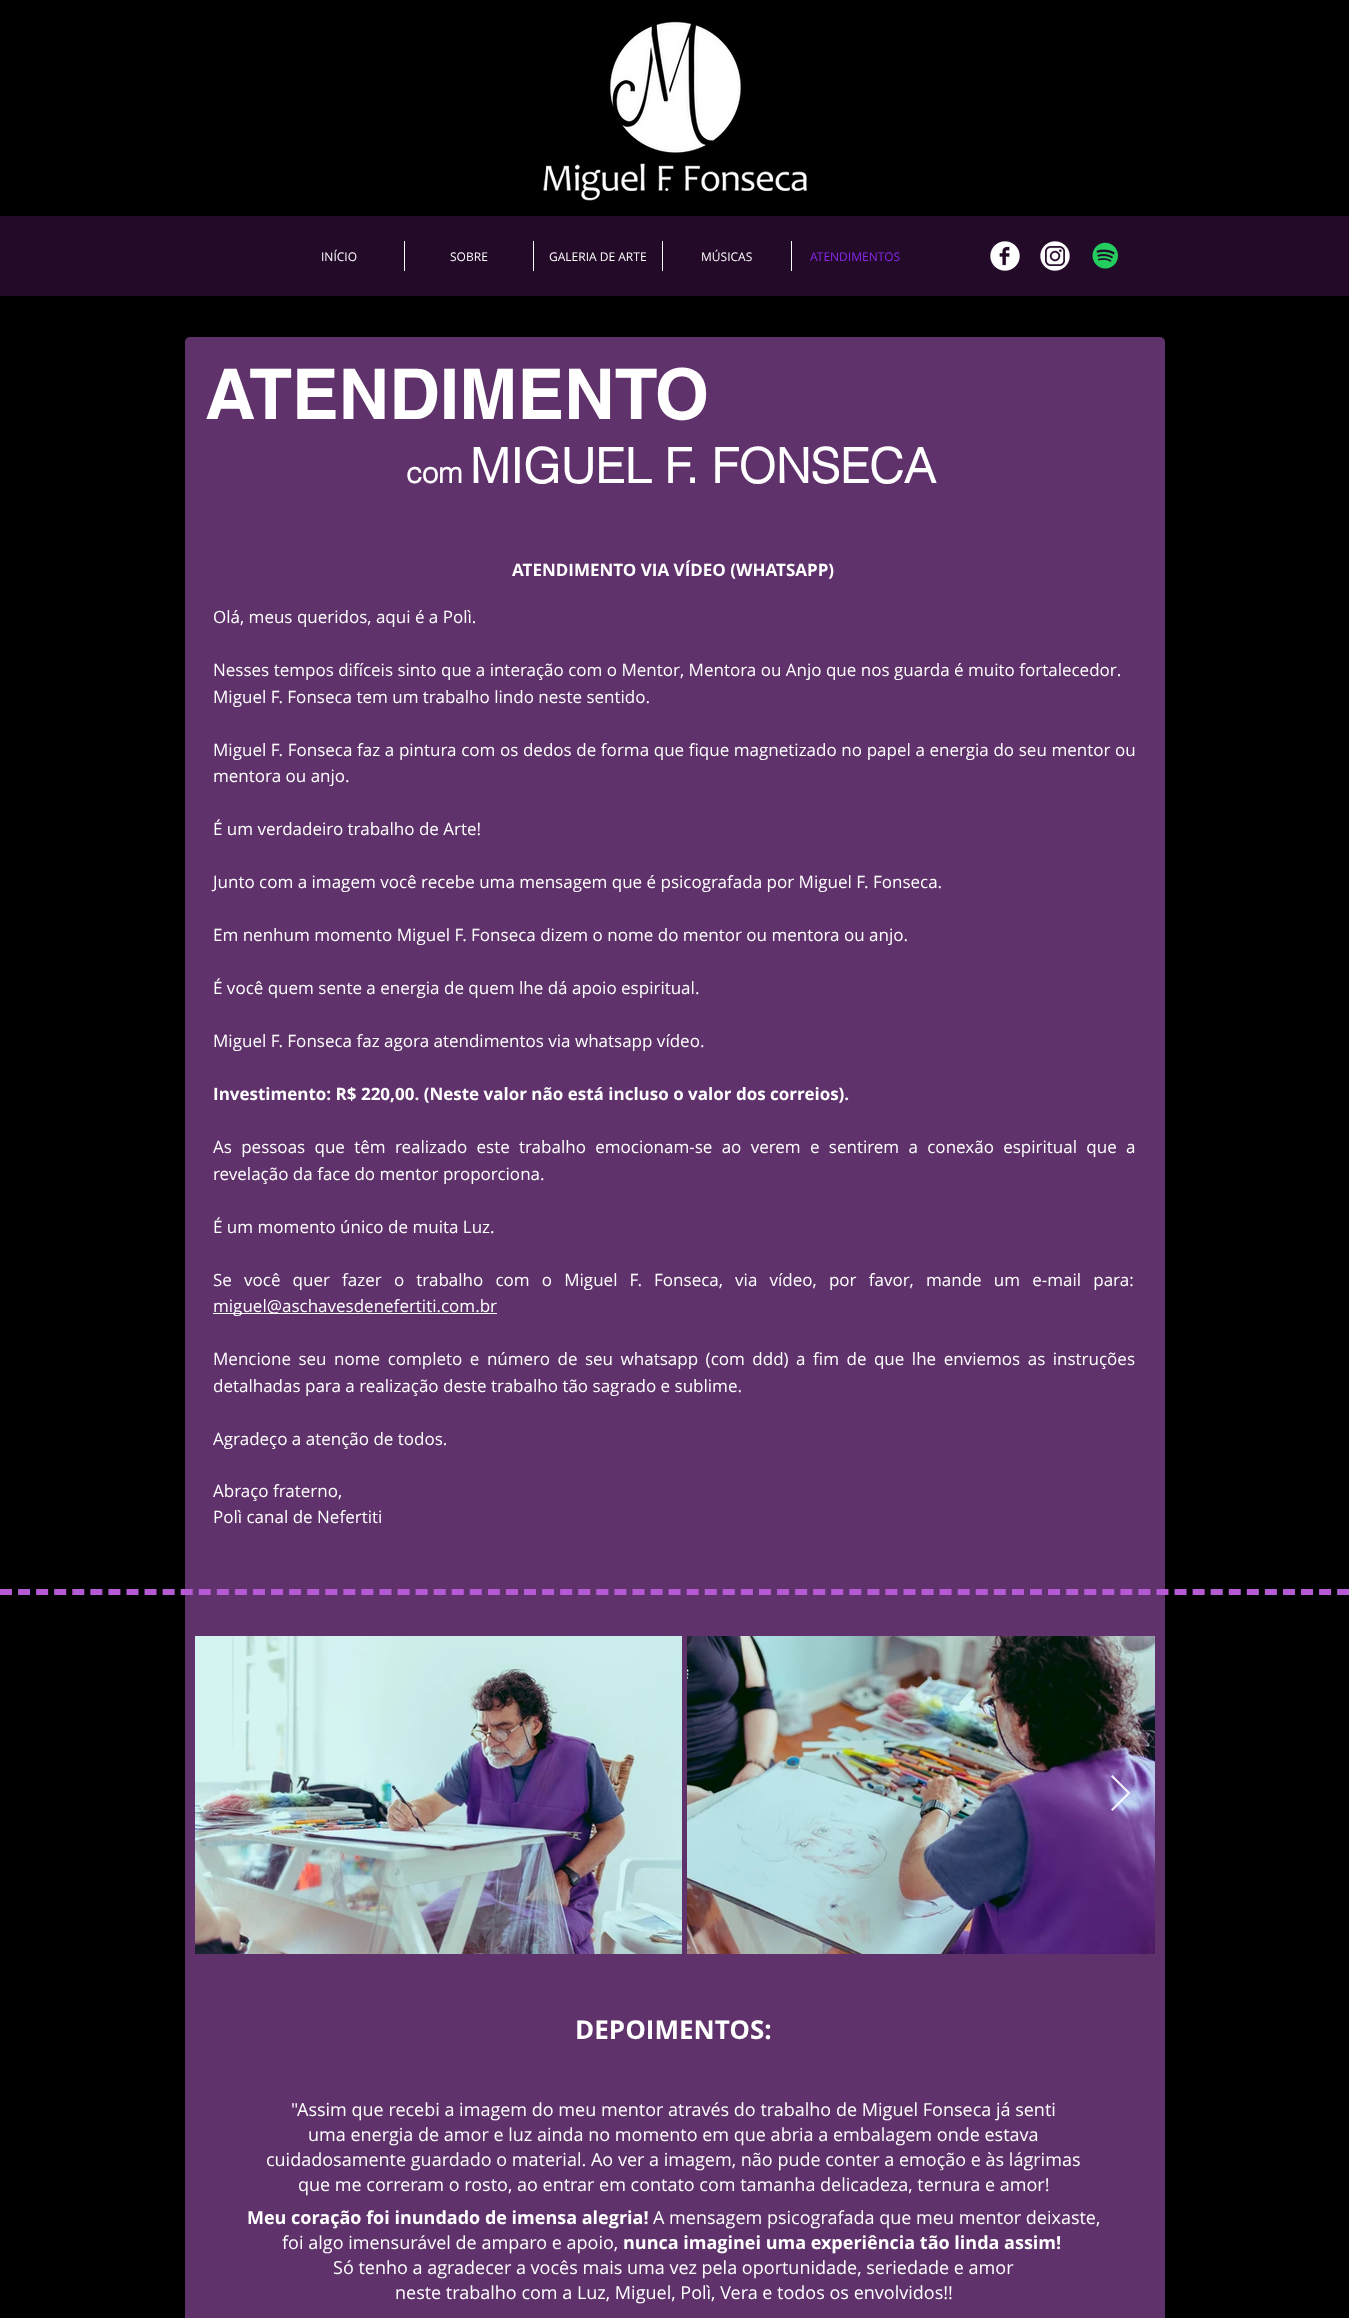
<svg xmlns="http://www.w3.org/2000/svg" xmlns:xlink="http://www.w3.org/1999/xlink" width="1349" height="2318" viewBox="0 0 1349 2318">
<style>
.cls-1{font:12px Open Sans;fill:#ffffff}
.cls-2{font:12px Open Sans;fill:#8b28ed}
.cls-3{font:bold 70px helvetica;fill:#ffffff}
.cls-4{font:bold 29px 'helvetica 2';fill:#ffffff}
.cls-5{font:bold 48px 'helvetica 2';fill:#ffffff}
.cls-6{font:bold 17px Open Sans;fill:#ffffff}
.cls-7{font:17px Open Sans;fill:#ffffff}
.cls-8{font:bold 26px Open Sans;fill:#ffffff}
.cls-9{font:18px Open Sans;fill:#ffffff}
.cls-10{font:bold 18px Open Sans;fill:#ffffff}
</style>
<rect width="100%" height="100%" fill="#000000"/>
<image xlink:href="image0.png" x="543" y="21" width="265" height="180"/>
<rect fill="#230a29" x="0" y="216" width="1349" height="80"/>
<rect fill="#ffffff" x="404" y="241" width="1" height="30"/>
<rect fill="#ffffff" x="533" y="241" width="1" height="30"/>
<rect fill="#ffffff" x="662" y="241" width="1" height="30"/>
<rect fill="#ffffff" x="791" y="241" width="1" height="30"/>
<image xlink:href="image1.png" x="990" y="241" width="30" height="30"/>
<image xlink:href="image2.png" x="1040" y="241" width="30" height="30"/>
<image xlink:href="image3.png" x="1092" y="242" width="27" height="27"/>
<rect fill="#60326c" x="185" y="337" width="980" height="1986" rx="5"/>
<rect fill="#ffffff" x="213" y="1313" width="284" height="1"/>
<path fill="none" stroke="#b45ad3" stroke-width="6" stroke-dasharray="12 6.07" d="M0 1592H1349"/>
<image xlink:href="image4.png" x="195" y="1636" width="487" height="318"/>
<image xlink:href="image5.png" x="687" y="1636" width="468" height="318"/>
<path fill="#ffffff" fill-opacity="0.9" d="M1111 1776.5L1112.5 1775L1130.5 1793L1112.5 1811L1111 1809.5L1127.5 1793Z"/>
<text class="cls-1" x="321" y="261">INÍCIO</text>
<text class="cls-1" x="450" y="261">SOBRE</text>
<text class="cls-1" x="549" y="261">GALERIA DE ARTE</text>
<text class="cls-1" x="701" y="261">MÚSICAS</text>
<text class="cls-2" x="810" y="261">ATENDIMENTOS</text>
<text class="cls-3" x="205" y="419">ATENDIMENTO</text>
<text class="cls-4" x="406" y="483">com</text>
<text class="cls-5" x="470" y="483">MIGUEL F. FONSECA</text>
<text class="cls-6" x="512" y="576">ATENDIMENTO VIA VÍDEO (WHATSAPP)</text>
<text class="cls-7" x="213" y="623">Olá, meus queridos, aqui é a Polì.</text>
<text class="cls-7"><tspan x="213" y="676">Nesses tempos difíceis sinto que a interação com o Mentor, Mentora ou Anjo que nos guarda é muito fortalecedor.</tspan><tspan x="213" y="703">Miguel F. Fonseca tem um trabalho lindo neste sentido.</tspan></text>
<text class="cls-7"><tspan x="213" y="756" word-spacing="0.2">Miguel F. Fonseca faz a pintura com os dedos de forma que fique magnetizado no papel a energia do seu mentor ou</tspan><tspan x="213" y="782">mentora ou anjo.</tspan></text>
<text class="cls-7" x="213" y="835">É um verdadeiro trabalho de Arte!</text>
<text class="cls-7" x="213" y="888">Junto com a imagem você recebe uma mensagem que é psicografada por Miguel F. Fonseca.</text>
<text class="cls-7" x="213" y="941">Em nenhum momento Miguel F. Fonseca dizem o nome do mentor ou mentora ou anjo.</text>
<text class="cls-7" x="213" y="994">É você quem sente a energia de quem lhe dá apoio espiritual.</text>
<text class="cls-7" x="213" y="1047">Miguel F. Fonseca faz agora atendimentos via whatsapp vídeo.</text>
<text class="cls-6" x="213" y="1100">Investimento: R$ 220,00. (Neste valor não está incluso o valor dos correios).</text>
<text class="cls-7"><tspan x="213" y="1153" word-spacing="4.9">As pessoas que têm realizado este trabalho emocionam-se ao verem e sentirem a conexão espiritual que a</tspan><tspan x="213" y="1180">revelação da face do mentor proporciona.</tspan></text>
<text class="cls-7" x="213" y="1233">É um momento único de muita Luz.</text>
<text class="cls-7"><tspan x="213" y="1286" word-spacing="7.75">Se você quer fazer o trabalho com o Miguel F. Fonseca, via vídeo, por favor, mande um e-mail para:</tspan><tspan x="213" y="1312">miguel@aschavesdenefertiti.com.br</tspan></text>
<text class="cls-7"><tspan x="213" y="1365" word-spacing="3.1">Mencione seu nome completo e número de seu whatsapp (com ddd) a fim de que lhe enviemos as instruções</tspan><tspan x="213" y="1392">detalhadas para a realização deste trabalho tão sagrado e sublime.</tspan></text>
<text class="cls-7" x="213" y="1445">Agradeço a atenção de todos.</text>
<text class="cls-7"><tspan x="213" y="1497">Abraço fraterno,</tspan><tspan x="213" y="1523">Polì canal de Nefertiti</tspan></text>
<text class="cls-8" x="575" y="2039">DEPOIMENTOS:</text>
<text class="cls-9" x="291" y="2116">"</text>
<text class="cls-9" x="297" y="2116">Assim que recebi a imagem do meu mentor através do trabalho de Miguel Fonseca já senti</text>
<text class="cls-9" x="308" y="2141">uma energia de amor e luz ainda no momento em que abria a embalagem onde estava</text>
<text class="cls-9" x="266" y="2166">cuidadosamente guardado o material. Ao ver a imagem, não pude conter a emoção e às lágrimas</text>
<text class="cls-9" x="298" y="2191">que me correram o rosto, ao entrar em contato com tamanha delicadeza, ternura e amor!</text>
<text class="cls-10" x="247" y="2224">Meu coração foi inundado de imensa alegria!</text>
<text class="cls-9" x="653" y="2224">A mensagem psicografada que meu mentor deixaste,</text>
<text class="cls-9" x="282" y="2249">foi algo imensurável de amparo e apoio,</text>
<text class="cls-10" x="623" y="2249">nunca imaginei uma experiência tão linda assim!</text>
<text class="cls-9" x="333" y="2274">Só tenho a agradecer a vocês mais uma vez pela oportunidade, seriedade e amor</text>
<text class="cls-9" x="395" y="2299">neste trabalho com a Luz, Miguel, Polì, Vera e todos os envolvidos!!</text>
</svg>
